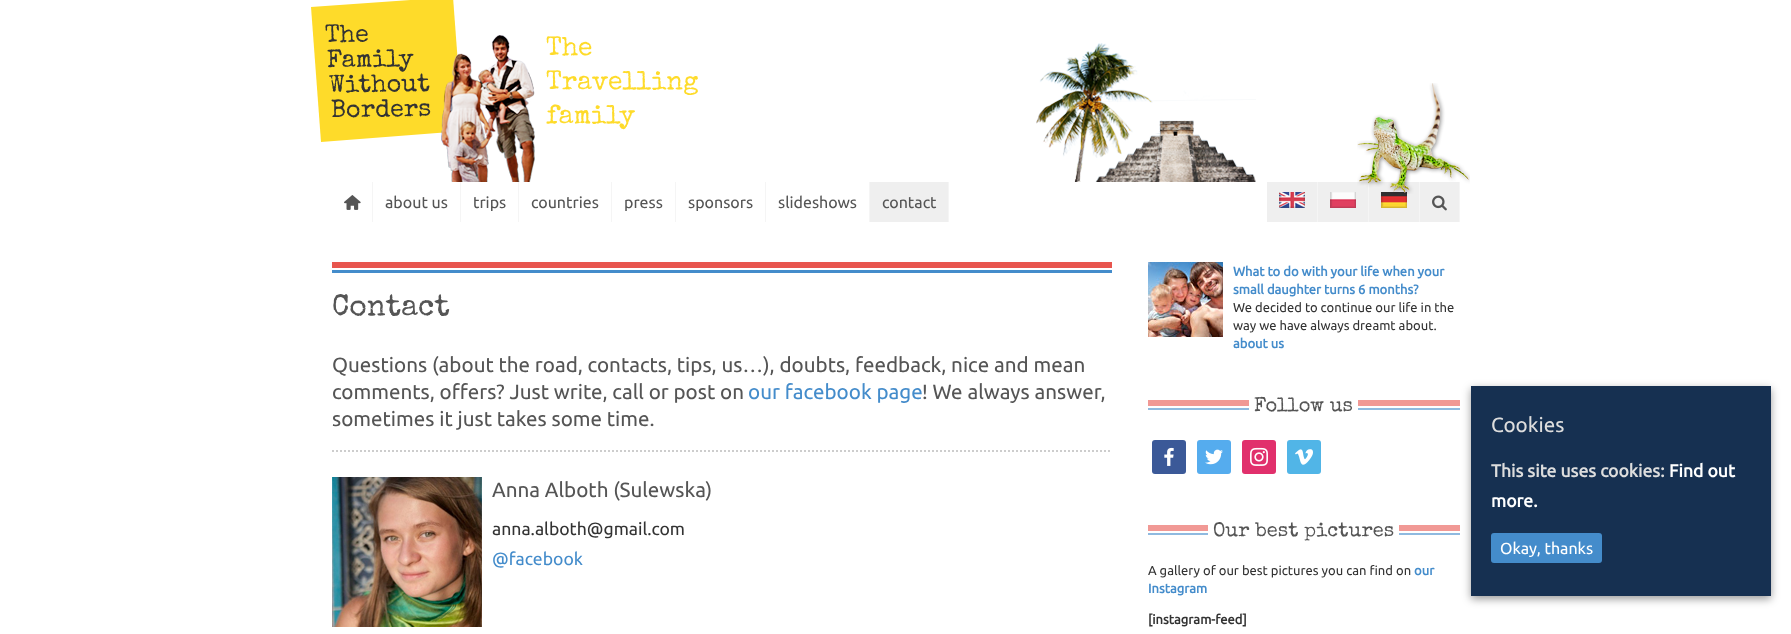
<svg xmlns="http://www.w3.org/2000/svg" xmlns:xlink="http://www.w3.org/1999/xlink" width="1791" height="634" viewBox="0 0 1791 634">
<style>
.cls-1{font:25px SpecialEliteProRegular;fill:#333333}
.cls-2{font:26.5px SpecialEliteProRegular;fill:#fedb2a}
.cls-3{font:16px Ubuntu;fill:#555555}
.cls-4{font:30px SpecialEliteProRegular;fill:#555555}
.cls-5{font:20.6px Ubuntu;fill:#555555}
.cls-6{font:20.6px Ubuntu;fill:#448ccb}
.cls-7{font:17.6px Ubuntu;fill:#333333}
.cls-8{font:17.6px Ubuntu;fill:#448ccb}
.cls-9{font:bold 13px Ubuntu;fill:#448ccb}
.cls-10{font:13px Ubuntu;fill:#333333}
.cls-11{font:20px SpecialEliteProRegular;fill:#555555}
.cls-12{font:bold 13px Ubuntu;fill:#333333}
.cls-13{font:20.6px Ubuntu;fill:#dddddd}
.cls-14{font:bold 17.6px Ubuntu;fill:#dddddd}
.cls-15{font:bold 17.6px Ubuntu;fill:#ffffff}
.cls-16{font:16px Ubuntu;fill:#ffffff}
</style>
<rect width="100%" height="100%" fill="#ffffff"/>
<path fill="#fedb2a" d="M311 7L453-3L463 131L321 142Z"/>
<image xlink:href="image0.png" x="441" y="35" width="94" height="147"/>
<image xlink:href="image1.png" x="1036" y="43" width="220" height="139"/>
<rect fill="#f5f5f5" x="1368" y="182" width="1" height="40"/>
<rect fill="#efefef" x="1318" y="182" width="50" height="40"/>
<rect fill="#f5f5f5" x="1419" y="182" width="1" height="40"/>
<rect fill="#efefef" x="1369" y="182" width="50" height="40"/>
<image xlink:href="image6.png" x="1381" y="192" width="26" height="16"/>
<rect fill="#f5f5f5" x="1459" y="182" width="1" height="40"/>
<rect fill="#efefef" x="1420" y="182" width="39" height="40"/>
<image xlink:href="image2.png" x="1357" y="83" width="113" height="111"/>
<rect fill="#f5f5f5" x="372" y="182" width="1" height="40"/>
<image xlink:href="image3.png" x="344" y="195" width="17" height="15"/>
<rect fill="#f5f5f5" x="460" y="182" width="1" height="40"/>
<rect fill="#f5f5f5" x="518" y="182" width="1" height="40"/>
<rect fill="#f5f5f5" x="611" y="182" width="1" height="40"/>
<rect fill="#f5f5f5" x="675" y="182" width="1" height="40"/>
<rect fill="#f5f5f5" x="765" y="182" width="1" height="40"/>
<rect fill="#f5f5f5" x="869" y="182" width="1" height="40"/>
<rect fill="#f5f5f5" x="948" y="182" width="1" height="40"/>
<rect fill="#efefef" x="870" y="182" width="78" height="40"/>
<rect fill="#f5f5f5" x="1317" y="182" width="1" height="40"/>
<rect fill="#efefef" x="1267" y="182" width="50" height="40"/>
<image xlink:href="image4.png" x="1279" y="192" width="26" height="16"/>
<image xlink:href="image5.png" x="1330" y="192" width="26" height="16"/>
<image xlink:href="image7.png" x="1432" y="195" width="15" height="16"/>
<rect fill="#e8554e" x="332" y="262" width="780" height="6"/>
<rect fill="#448ccb" x="332" y="270" width="780" height="3"/>
<path fill="none" stroke="#cdcdcd" stroke-width="2" stroke-dasharray="2 2" d="M332 451H1112"/>
<image xlink:href="image8.png" x="332" y="477" width="150" height="150"/>
<image xlink:href="image9.png" x="1148" y="262" width="75" height="75"/>
<rect fill="#f19995" x="1148" y="400" width="312" height="6"/>
<rect fill="#8fbae0" x="1148" y="408" width="312" height="2"/>
<rect fill="#ffffff" x="1249" y="400" width="109" height="10"/>
<rect fill="#3b5998" x="1152" y="440" width="34" height="34" rx="3"/>
<image xlink:href="image10.png" x="1164" y="447" width="10" height="19"/>
<rect fill="#55acee" x="1197" y="440" width="34" height="34" rx="3"/>
<image xlink:href="image11.png" x="1205" y="449" width="18" height="16"/>
<rect fill="#e1306c" x="1242" y="440" width="34" height="34" rx="3"/>
<image xlink:href="image12.png" x="1250" y="447" width="18" height="19"/>
<rect fill="#51b5e7" x="1287" y="440" width="34" height="34" rx="3"/>
<image xlink:href="image13.png" x="1295" y="449" width="18" height="16"/>
<rect fill="#f19995" x="1148" y="525" width="312" height="6"/>
<rect fill="#8fbae0" x="1148" y="533" width="312" height="2"/>
<rect fill="#ffffff" x="1208" y="525" width="191" height="10"/>
<rect fill="#000000" fill-opacity="0.4" filter="blur(4.5px)" x="1471" y="389" width="300" height="210"/>
<rect fill="#163051" x="1471" y="386" width="300" height="210"/>
<rect fill="#448ccb" x="1491" y="533" width="111" height="30" rx="3"/>
<text class="cls-1" x="325" y="42" transform="rotate(-0.8 325 42)">The</text>
<text class="cls-1" x="327" y="67" transform="rotate(-0.8 327 67)">Family</text>
<text class="cls-1" x="329" y="92" transform="rotate(-0.8 329 92)">Without</text>
<text class="cls-1" x="331" y="117" transform="rotate(-0.8 331 117)">Borders</text>
<text class="cls-2"><tspan x="546" y="55">The</tspan><tspan x="546" y="89">Travelling</tspan><tspan x="546" y="123">family</tspan></text>
<text class="cls-3" x="385" y="208">about us</text>
<text class="cls-3" x="473" y="208">trips</text>
<text class="cls-3" x="531" y="208">countries</text>
<text class="cls-3" x="624" y="208">press</text>
<text class="cls-3" x="688" y="208">sponsors</text>
<text class="cls-3" x="778" y="208">slideshows</text>
<text class="cls-3" x="882" y="208">contact</text>
<text class="cls-4" x="332" y="315">Contact</text>
<text class="cls-5"><tspan x="332" y="372">Questions (about the road, contacts, tips, us…), doubts, feedback, nice and mean</tspan><tspan x="332" y="399">comments, offers? Just write, call or post on</tspan></text>
<text class="cls-6" x="748" y="399">our facebook page</text>
<text class="cls-5" x="922" y="399">! We always answer,</text>
<text class="cls-5" x="332" y="426">sometimes it just takes some time.</text>
<text class="cls-5" x="492" y="497">Anna Alboth (Sulewska)</text>
<text class="cls-7" x="492" y="535">anna.alboth@gmail.com</text>
<text class="cls-8" x="492" y="565">@facebook</text>
<text class="cls-9"><tspan x="1233" y="276">What to do with your life when your</tspan><tspan x="1233" y="294">small daughter turns 6 months?</tspan></text>
<text class="cls-10"><tspan x="1233" y="312">We decided to continue our life in the</tspan><tspan x="1233" y="330">way we have always dreamt about.</tspan></text>
<text class="cls-9" x="1233" y="348">about us</text>
<text class="cls-11" x="1254" y="411">Follow us</text>
<text class="cls-11" x="1213" y="536">Our best pictures</text>
<text class="cls-10" x="1148" y="575">A gallery of our best pictures you can find on</text>
<text class="cls-9" x="1414" y="575">our</text>
<text class="cls-9" x="1148" y="593">Instagram</text>
<text class="cls-12" x="1148" y="624">[instagram-feed]</text>
<text class="cls-13" x="1491" y="432">Cookies</text>
<text class="cls-14" x="1491" y="477">This site uses cookies:</text>
<text class="cls-15" x="1669" y="477">Find out</text>
<text class="cls-15" x="1491" y="507">more.</text>
<text class="cls-16" x="1500" y="554">Okay, thanks</text>
</svg>
